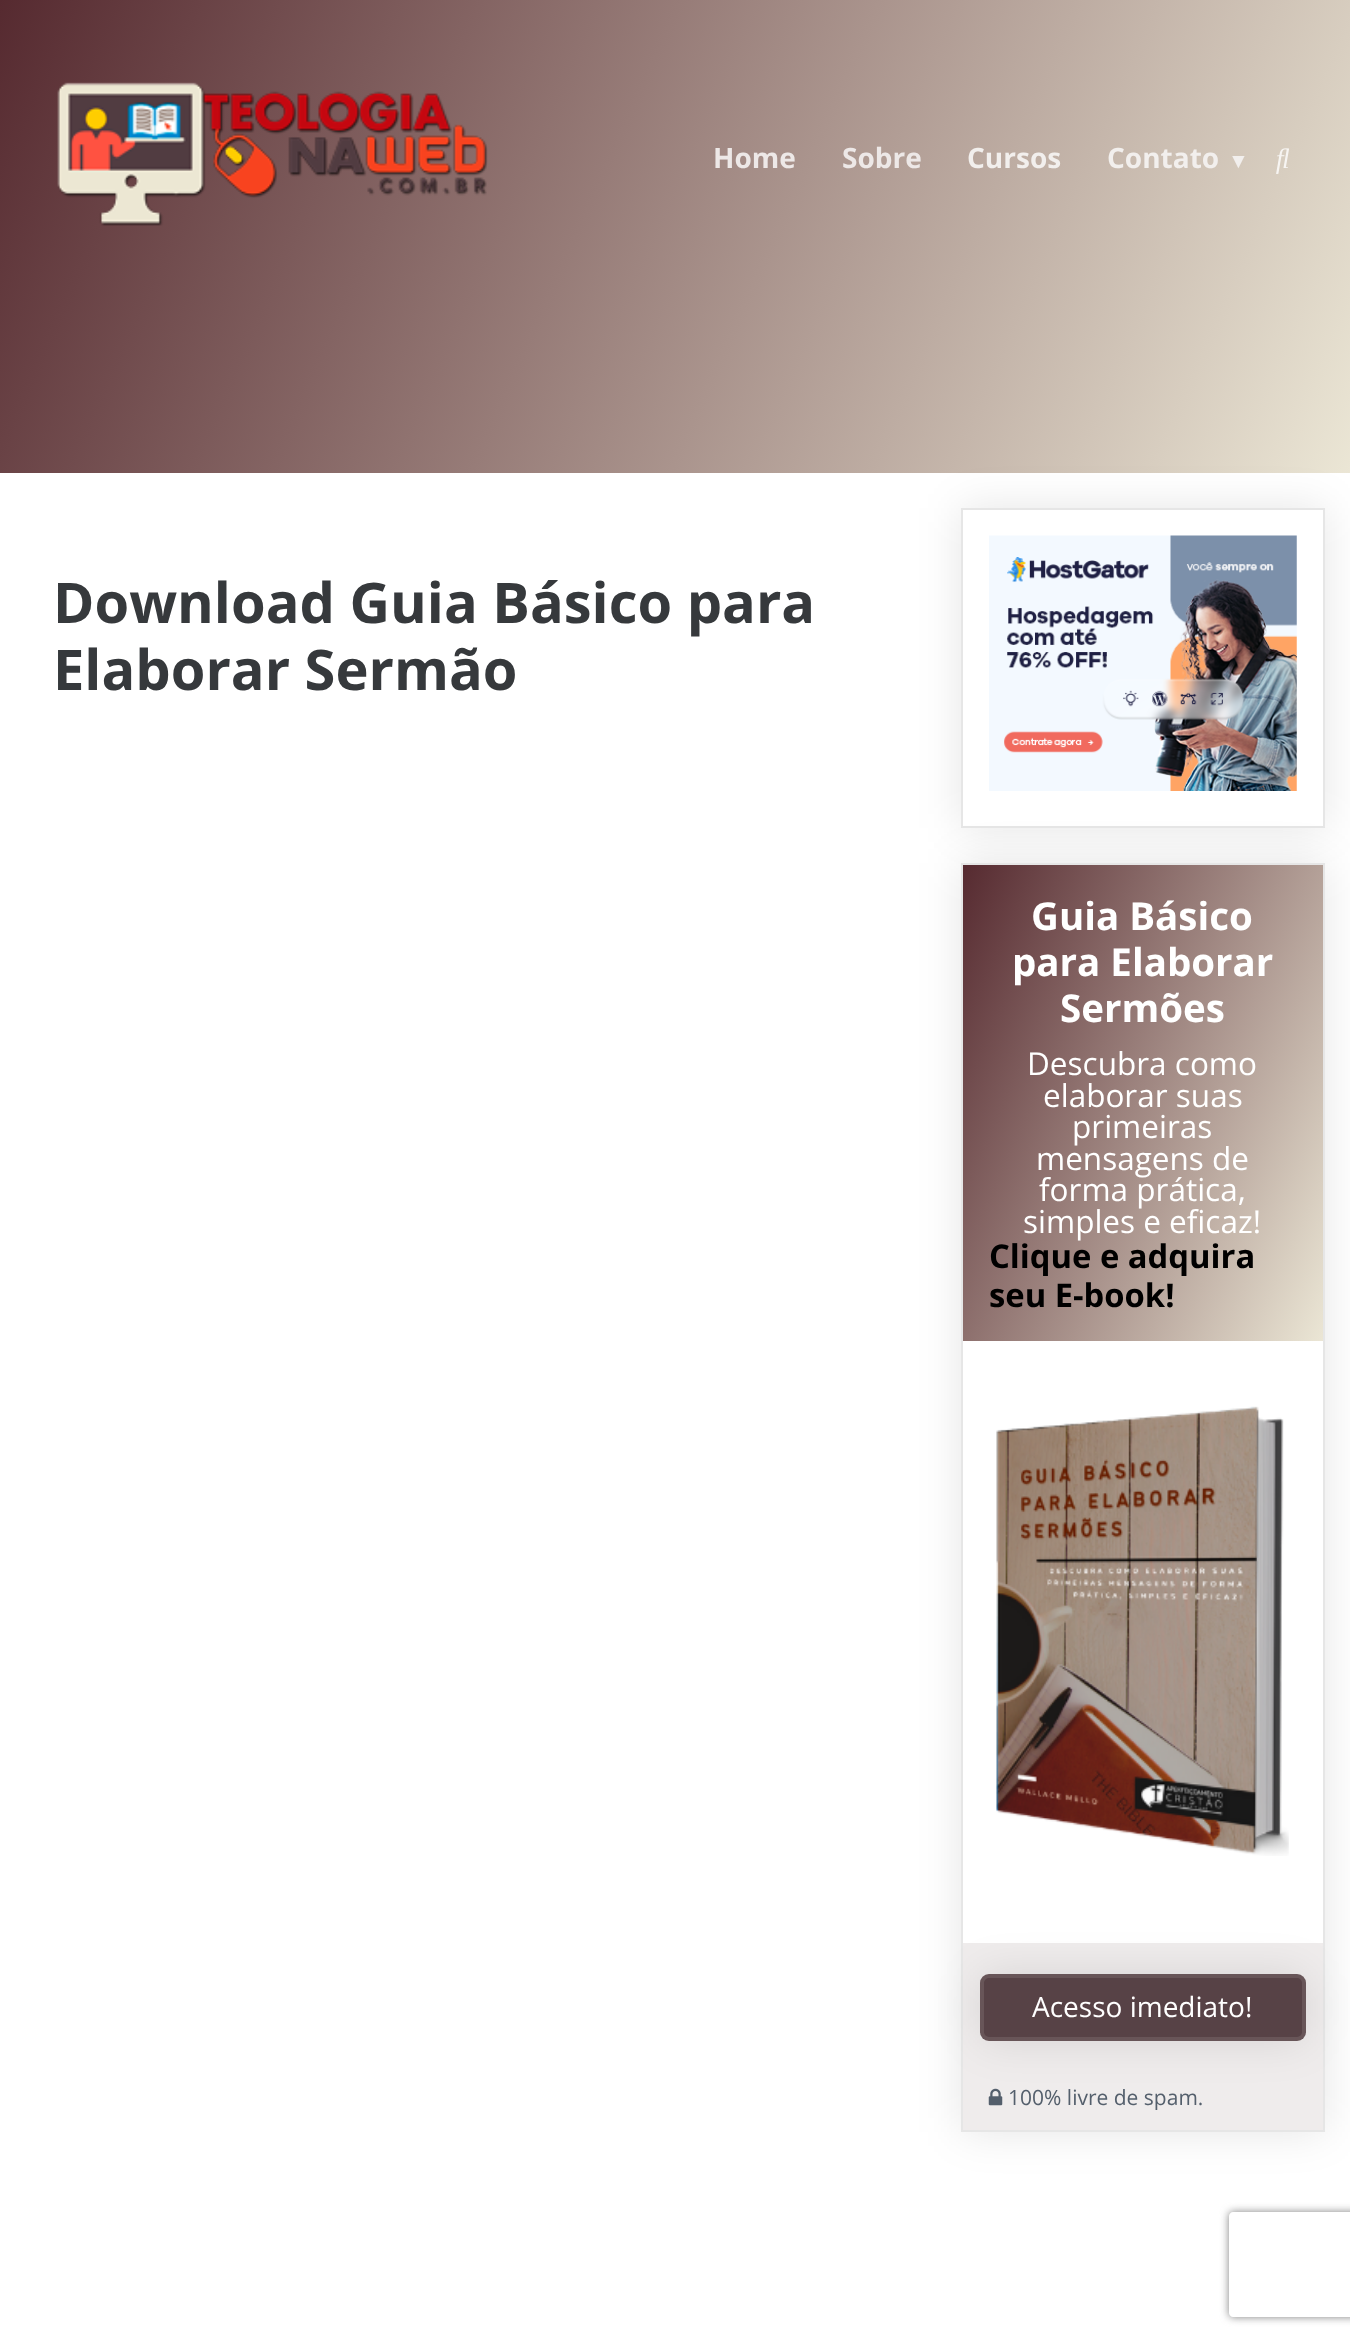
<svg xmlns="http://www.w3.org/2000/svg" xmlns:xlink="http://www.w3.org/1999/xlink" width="1350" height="2340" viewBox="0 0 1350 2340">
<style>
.cls-1{font:bold 28px Open Sans;fill:#ede8e7}
.cls-2{font:bold 28px Open Sans;fill:#f2efed}
.cls-3{font:bold 21px Liberation Sans;fill:#f2efed}
.cls-4{font:bold 56px Open Sans;fill:#36393c}
.cls-5{font:bold 38.5px Open Sans;fill:#ffffff}
.cls-6{font:31.5px Open Sans;fill:#ffffff}
.cls-7{font:bold 32.75px Open Sans;fill:#000000}
.cls-8{font:28px Open Sans;fill:#ffffff}
.cls-9{font:21px Open Sans;fill:#545f6c}
</style>
<defs>
<linearGradient id="g1" gradientUnits="userSpaceOnUse" x1="24" y1="-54" x2="1327" y2="526"><stop offset="0" stop-color="#562a30"/><stop offset="1" stop-color="#ebe6d5"/></linearGradient>
<linearGradient id="g2" gradientUnits="userSpaceOnUse" x1="904" y1="996" x2="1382" y2="1209"><stop offset="0" stop-color="#562a30"/><stop offset="1" stop-color="#ebe6d5"/></linearGradient>
<clipPath id="clip1"><path d="M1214 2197H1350V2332H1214ZM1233 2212H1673C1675 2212 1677 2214 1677 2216V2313C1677 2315 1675 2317 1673 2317H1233C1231 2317 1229 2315 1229 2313V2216C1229 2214 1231 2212 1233 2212Z" clip-rule="evenodd"/></clipPath>
</defs>
<rect width="100%" height="100%" fill="#ffffff"/>
<rect fill="url(#g1)" x="0" y="0" width="1350" height="473"/>
<image xlink:href="image0.png" x="57" y="82" width="431" height="144"/>
<image xlink:href="image1.png" x="1276" y="148" width="13" height="26"/>
<rect fill="#000000" fill-opacity="0.1" filter="blur(22px)" x="961" y="508" width="364" height="320"/>
<rect fill="#ffffff" stroke="#e6e6e6" stroke-width="2" x="962" y="509" width="362" height="318"/>
<image xlink:href="image2.png" x="989" y="535" width="308" height="256"/>
<rect fill="#000000" fill-opacity="0.1" filter="blur(22px)" x="961" y="863" width="364" height="1269"/>
<rect fill="#ffffff" x="963" y="1341" width="360" height="602"/>
<rect fill="none" stroke="#e6e6e6" stroke-width="2" x="962" y="864" width="362" height="1267"/>
<rect fill="url(#g2)" x="963" y="865" width="360" height="476"/>
<image xlink:href="image3.png" x="996" y="1406" width="293" height="450"/>
<rect fill="#efecec" x="963" y="1943" width="360" height="187"/>
<rect fill="#000000" fill-opacity="0.1" filter="blur(22px)" x="980" y="1974" width="326" height="67" rx="9"/>
<rect fill="#574246" x="980" y="1974" width="326" height="67" rx="9"/>
<rect fill="none" stroke="#ffffff" stroke-opacity="0.1" stroke-width="4" x="982" y="1976" width="322" height="63" rx="7"/>
<image xlink:href="image4.png" x="988" y="2088" width="15" height="18"/>
<g clip-path="url(#clip1)">
<rect fill="#808080" filter="blur(4.5px)" x="1229" y="2212" width="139" height="105" rx="4"/>
</g>
<text class="cls-1" x="713" y="168">Home</text>
<text class="cls-1" x="842" y="168">Sobre</text>
<text class="cls-2" x="967" y="168">Cursos</text>
<text class="cls-2" x="1107" y="168">Contato</text>
<text class="cls-3" x="1228" y="168">▼</text>
<text class="cls-4"><tspan x="53" y="623">Download Guia Básico para</tspan><tspan x="53" y="690">Elaborar Sermão</tspan></text>
<text class="cls-5" x="1031" y="930">Guia Básico</text>
<text class="cls-5" x="1012" y="976">para Elaborar</text>
<text class="cls-5" x="1060" y="1022">Sermões</text>
<text class="cls-6" x="1027" y="1075">Descubra como</text>
<text class="cls-6" x="1043" y="1107">elaborar suas</text>
<text class="cls-6" x="1072" y="1138">primeiras</text>
<text class="cls-6" x="1036" y="1170">mensagens de</text>
<text class="cls-6" x="1039" y="1201">forma prática,</text>
<text class="cls-6" x="1023" y="1233">simples e eficaz!</text>
<text class="cls-7"><tspan x="989" y="1268">Clique e adquira</tspan><tspan x="989" y="1307">seu E-book!</tspan></text>
<text class="cls-8" x="1032" y="2017">Acesso imediato!</text>
<text class="cls-9" x="1008" y="2105">100% livre de spam.</text>
</svg>
